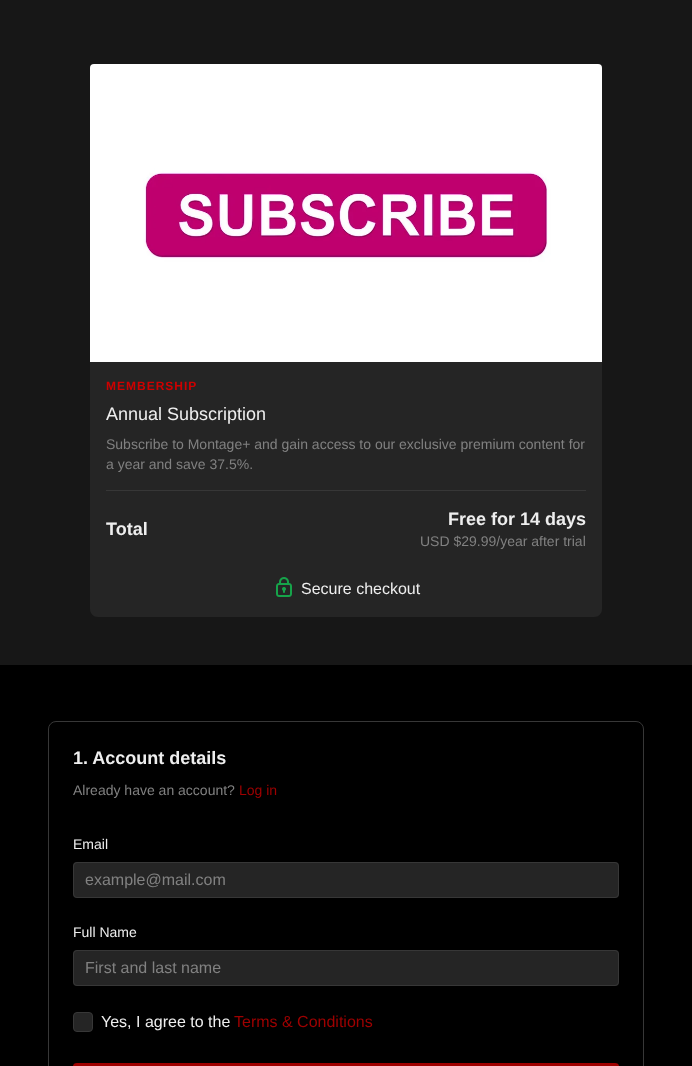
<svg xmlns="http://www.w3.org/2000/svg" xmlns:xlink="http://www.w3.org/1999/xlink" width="692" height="1066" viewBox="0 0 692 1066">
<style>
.cls-1{font:bold 12px Liberation Sans;letter-spacing:1px;fill:#cf0000}
.cls-2{font:18px Liberation Sans;fill:#eeeeee}
.cls-3{font:14px Liberation Sans;fill:#818181}
.cls-4{font:bold 18px Liberation Sans;fill:#eeeeee}
.cls-5{font:16px Liberation Sans;fill:#eeeeee}
.cls-6{font:14px Liberation Sans;fill:#9f0000}
.cls-7{font:14px Liberation Sans;fill:#eeeeee}
.cls-8{font:16px Liberation Sans;fill:#818181}
.cls-9{font:16px Liberation Sans;fill:#9f0000}
</style>
<rect width="100%" height="100%" fill="#000000"/>
<rect fill="#171717" x="0" y="0" width="692" height="665"/>
<image xlink:href="image0.png" x="90" y="64" width="512" height="298"/>
<path fill="#252525" d="M90 362H602V609C602 613.5 598.5 617 594 617H98C93.5 617 90 613.5 90 609Z"/>
<rect fill="#373737" x="106" y="490" width="480" height="1"/>
<image xlink:href="image1.png" x="276" y="577" width="16" height="20"/>
<rect fill="none" stroke="#373737" x="48.5" y="721.5" width="595" height="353" rx="7.5"/>
<rect fill="#252525" x="73" y="862" width="546" height="36" rx="4"/>
<rect fill="none" stroke="#373737" x="73.5" y="862.5" width="545" height="35" rx="3.5"/>
<rect fill="#252525" x="73" y="950" width="546" height="36" rx="4"/>
<rect fill="none" stroke="#373737" x="73.5" y="950.5" width="545" height="35" rx="3.5"/>
<rect fill="#252525" stroke="#373737" x="73.5" y="1012.5" width="19" height="19" rx="3.5"/>
<rect fill="#9f0000" x="73" y="1063" width="546" height="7" rx="4"/>
<text class="cls-1" x="106" y="390">MEMBERSHIP</text>
<text class="cls-2" x="106" y="420">Annual Subscription</text>
<text class="cls-3"><tspan x="106" y="449">Subscribe to Montage+ and gain access to our exclusive premium content for</tspan><tspan x="106" y="469">a year and save 37.5%.</tspan></text>
<text class="cls-4" x="106" y="535">Total</text>
<text class="cls-4" x="448" y="525">Free for 14 days</text>
<text class="cls-3" x="420" y="546">USD $29.99/year after trial</text>
<text class="cls-5" x="301" y="594">Secure checkout</text>
<text class="cls-4" x="73" y="764">1. Account details</text>
<text class="cls-3" x="73" y="795">Already have an account?</text>
<text class="cls-6" x="239" y="795">Log in</text>
<text class="cls-7" x="73" y="849">Email</text>
<text class="cls-8" x="85" y="885">example@mail.com</text>
<text class="cls-7" x="73" y="937">Full Name</text>
<text class="cls-8" x="85" y="973">First and last name</text>
<text class="cls-5" x="101" y="1027">Yes, I agree to the</text>
<text class="cls-9" x="234" y="1027">Terms &amp; Conditions</text>
</svg>
